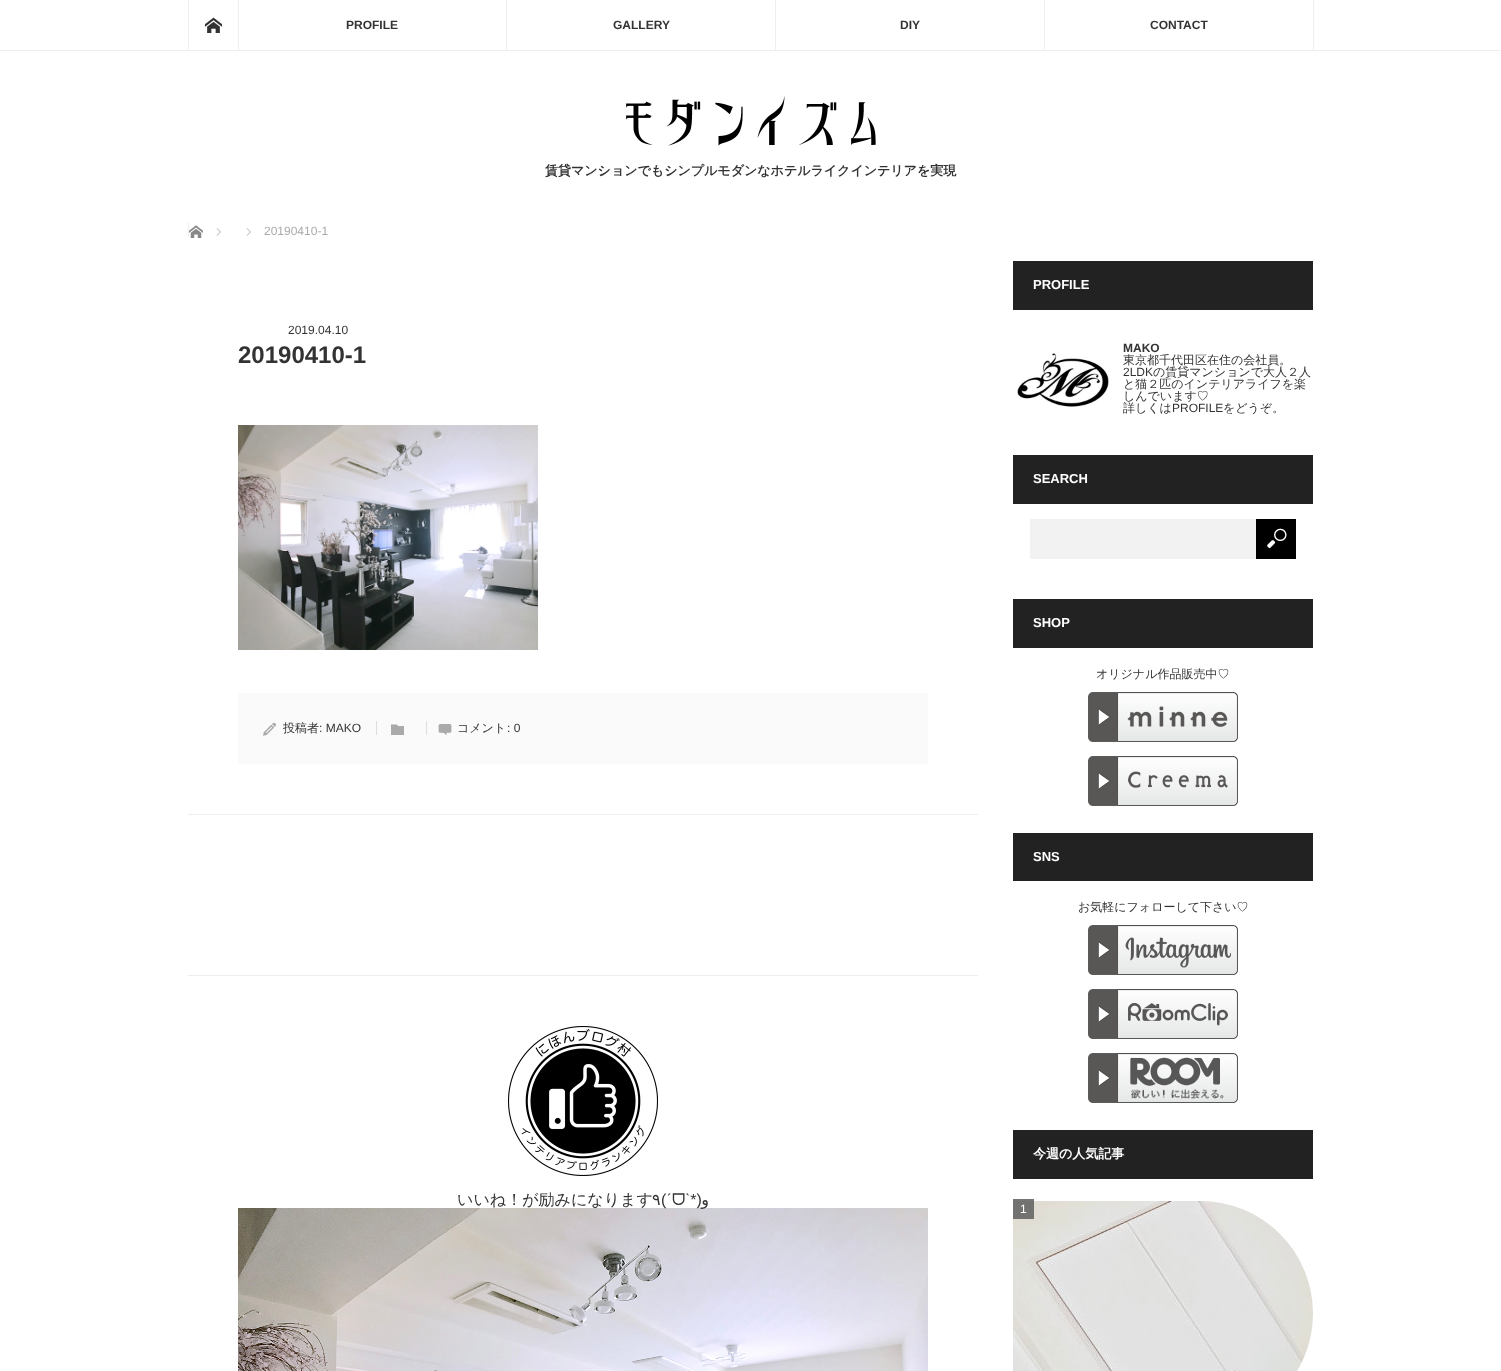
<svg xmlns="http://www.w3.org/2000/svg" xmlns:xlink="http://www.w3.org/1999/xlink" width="1501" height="1371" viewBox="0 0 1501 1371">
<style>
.cls-1{font:bold 12px Liberation Sans;fill:#333333}
.cls-2{font:bold 13px WenQuanYi Zen Hei;fill:#333333}
.cls-3{font:12px Liberation Sans;fill:#aaaaaa}
.cls-4{font:12px Liberation Sans;fill:#333333}
.cls-5{font:bold 24px Liberation Sans;fill:#333333}
.cls-6{font:500 12px WenQuanYi Zen Hei;fill:#333333}
.cls-7{font:500 16px WenQuanYi Zen Hei;fill:#333333}
.cls-8{font:16px DejaVu Sans;fill:#333333}
.cls-9{font:16px Liberation Sans;fill:#333333}
.cls-10{font:16px FreeSans;fill:#333333}
.cls-11{font:16px DejaVu Sans;direction:rtl;fill:#333333}
.cls-12{font:bold 13px Liberation Sans;fill:#ffffff}
.cls-13{font:bold 13px WenQuanYi Zen Hei;fill:#ffffff}
.cls-14{font:12px Liberation Sans;fill:#ffffff}
</style>
<rect width="100%" height="100%" fill="#ffffff"/>
<rect fill="#eeeeee" x="0" y="50" width="1501" height="1"/>
<rect fill="#eeeeee" x="1313" y="0" width="1" height="50"/>
<rect fill="#eeeeee" x="188" y="0" width="1" height="50"/>
<image xlink:href="image0.png" x="205" y="17" width="17" height="16"/>
<rect fill="#eeeeee" x="238" y="0" width="1" height="50"/>
<rect fill="#eeeeee" x="506" y="0" width="1" height="50"/>
<rect fill="#eeeeee" x="775" y="0" width="1" height="50"/>
<rect fill="#eeeeee" x="1044" y="0" width="1" height="50"/>
<image xlink:href="image1.png" x="626" y="96" width="250" height="50"/>
<rect fill="#eeeeee" x="188" y="222" width="1" height="15"/>
<image xlink:href="image2.png" x="189" y="225" width="14" height="13"/>
<image xlink:href="image3.png" x="216" y="228" width="5" height="8"/>
<image xlink:href="image3.png" x="246" y="228" width="5" height="8"/>
<image xlink:href="image4.png" x="238" y="425" width="300" height="225"/>
<rect fill="#fafafa" x="238" y="693" width="690" height="71"/>
<rect fill="#dddddd" x="376" y="721" width="1" height="14"/>
<image xlink:href="image5.png" x="263" y="722" width="13" height="14"/>
<rect fill="#dddddd" x="426" y="721" width="1" height="14"/>
<image xlink:href="image6.png" x="391" y="724" width="13" height="11"/>
<image xlink:href="image7.png" x="438" y="724" width="14" height="11"/>
<rect fill="#eeeeee" x="188" y="814" width="790" height="1"/>
<rect fill="#eeeeee" x="188" y="975" width="790" height="1"/>
<image xlink:href="image8.png" x="508" y="1026" width="150" height="150"/>
<image xlink:href="image9.png" x="238" y="1208" width="690" height="163"/>
<rect fill="#222222" x="1013" y="261" width="300" height="49"/>
<image xlink:href="image10.png" x="1017" y="353" width="92" height="54"/>
<rect fill="#222222" x="1013" y="455" width="300" height="49"/>
<rect fill="#f2f2f2" x="1030" y="519" width="226" height="40"/>
<rect fill="#000000" x="1256" y="519" width="40" height="40"/>
<image xlink:href="image11.png" x="1267" y="528" width="20" height="20"/>
<rect fill="#222222" x="1013" y="599" width="300" height="49"/>
<image xlink:href="image12.png" x="1088" y="692" width="150" height="50"/>
<image xlink:href="image13.png" x="1088" y="756" width="150" height="50"/>
<rect fill="#222222" x="1013" y="833" width="300" height="48"/>
<image xlink:href="image14.png" x="1088" y="925" width="150" height="50"/>
<image xlink:href="image15.png" x="1088" y="989" width="150" height="50"/>
<image xlink:href="image16.png" x="1088" y="1053" width="150" height="50"/>
<rect fill="#222222" x="1013" y="1130" width="300" height="49"/>
<image xlink:href="image17.png" x="1013" y="1201" width="300" height="170"/>
<rect fill="#666666" fill-opacity="0.9" x="1013" y="1199" width="21" height="20"/>
<text class="cls-1" x="346" y="29">PROFILE</text>
<text class="cls-1" x="613" y="29">GALLERY</text>
<text class="cls-1" x="900" y="29">DIY</text>
<text class="cls-1" x="1150" y="29">CONTACT</text>
<text class="cls-2" x="545" y="175">賃貸マンションでもシンプルモダンなホテルライクインテリアを実現</text>
<text class="cls-3" x="264" y="235">20190410-1</text>
<text class="cls-4" x="288" y="334">2019.04.10</text>
<text class="cls-5" x="238" y="363">20190410-1</text>
<text class="cls-6" x="283" y="732">投稿者</text>
<text class="cls-4" x="319" y="732">: MAKO</text>
<text class="cls-6" x="457" y="732">コメント</text>
<text class="cls-4" x="507" y="732">: 0</text>
<text class="cls-7" x="457" y="1205">いいね！が励みになります</text>
<text class="cls-8" x="652" y="1205">٩</text>
<text class="cls-9" x="661" y="1205">(ˊ</text>
<text class="cls-10" x="672" y="1205">ᗜ</text>
<text class="cls-9" x="685" y="1205">ˋ*)</text>
<text class="cls-11" x="709" y="1205">و</text>
<text class="cls-12" x="1033" y="289">PROFILE</text>
<text class="cls-1" x="1123" y="352">MAKO</text>
<text class="cls-6" x="1123" y="364">東京都千代田区在住の会社員。</text>
<text class="cls-4" x="1123" y="376">2LDK</text>
<text class="cls-6" x="1153" y="376">の賃貸マンションで大人２人</text>
<text class="cls-6"><tspan x="1123" y="388">と猫２匹のインテリアライフを楽</tspan><tspan x="1123" y="400">しんでいます♡</tspan><tspan x="1123" y="412">詳しくは</tspan></text>
<text class="cls-4" x="1172" y="412">PROFILE</text>
<text class="cls-6" x="1223" y="412">をどうぞ。</text>
<text class="cls-12" x="1033" y="483">SEARCH</text>
<text class="cls-12" x="1033" y="627">SHOP</text>
<text class="cls-6" x="1096" y="678">オリジナル作品販売中♡</text>
<text class="cls-12" x="1033" y="861">SNS</text>
<text class="cls-6" x="1078" y="911">お気軽にフォローして下さい♡</text>
<text class="cls-13" x="1033" y="1158">今週の人気記事</text>
<text class="cls-14" x="1020" y="1213">1</text>
</svg>
